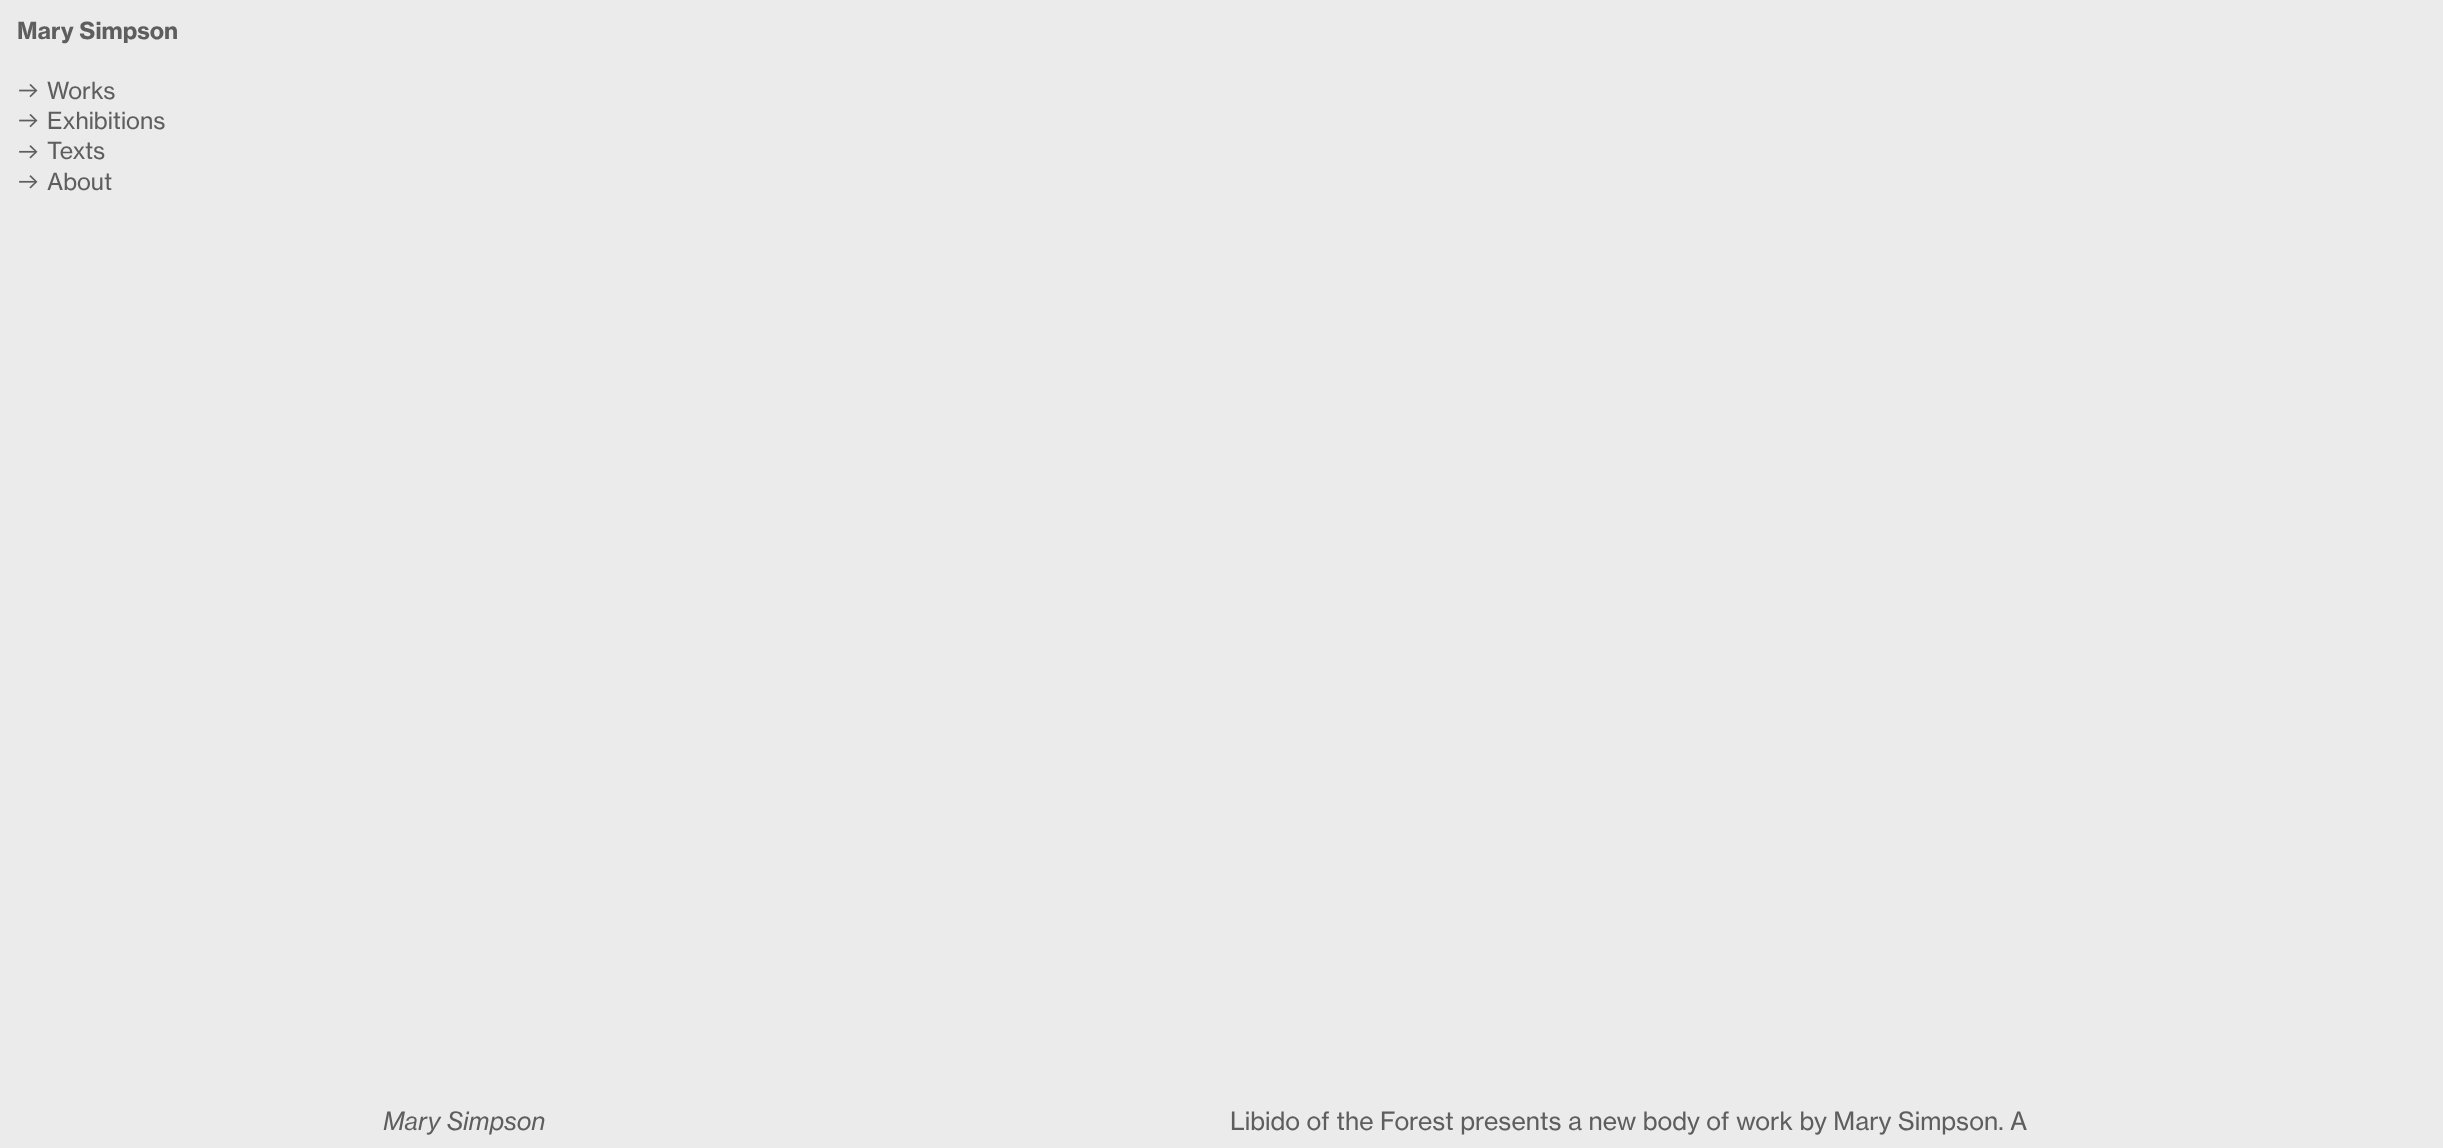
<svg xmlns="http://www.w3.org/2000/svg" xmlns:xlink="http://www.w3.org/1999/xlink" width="2443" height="1148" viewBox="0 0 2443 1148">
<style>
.cls-1{font:bold 23.25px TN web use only;fill:#5e5e5e}
.cls-2{font:23.25px TN web use only;fill:#5e5e5e}
.cls-3{font:italic 24.8px TN web use only;fill:#5e5e5e}
.cls-4{font:24.8px TN web use only;fill:#5e5e5e}
</style>
<rect width="100%" height="100%" fill="#ebebeb"/>
<image xlink:href="image0.png" x="19" y="84" width="19" height="14"/>
<image xlink:href="image0.png" x="19" y="114" width="19" height="14"/>
<image xlink:href="image1.png" x="19" y="145" width="19" height="14"/>
<image xlink:href="image1.png" x="19" y="175" width="19" height="14"/>
<text class="cls-1" x="17" y="39">Mary Simpson</text>
<text class="cls-2"><tspan x="47" y="99">Works</tspan><tspan x="47" y="129">Exhibitions</tspan><tspan x="47" y="159">Texts</tspan><tspan x="47" y="190">About</tspan></text>
<text class="cls-3" x="383" y="1130">Mary Simpson</text>
<text class="cls-4" x="1230" y="1130">Libido of the Forest presents a new body of work by Mary Simpson. A</text>
</svg>
